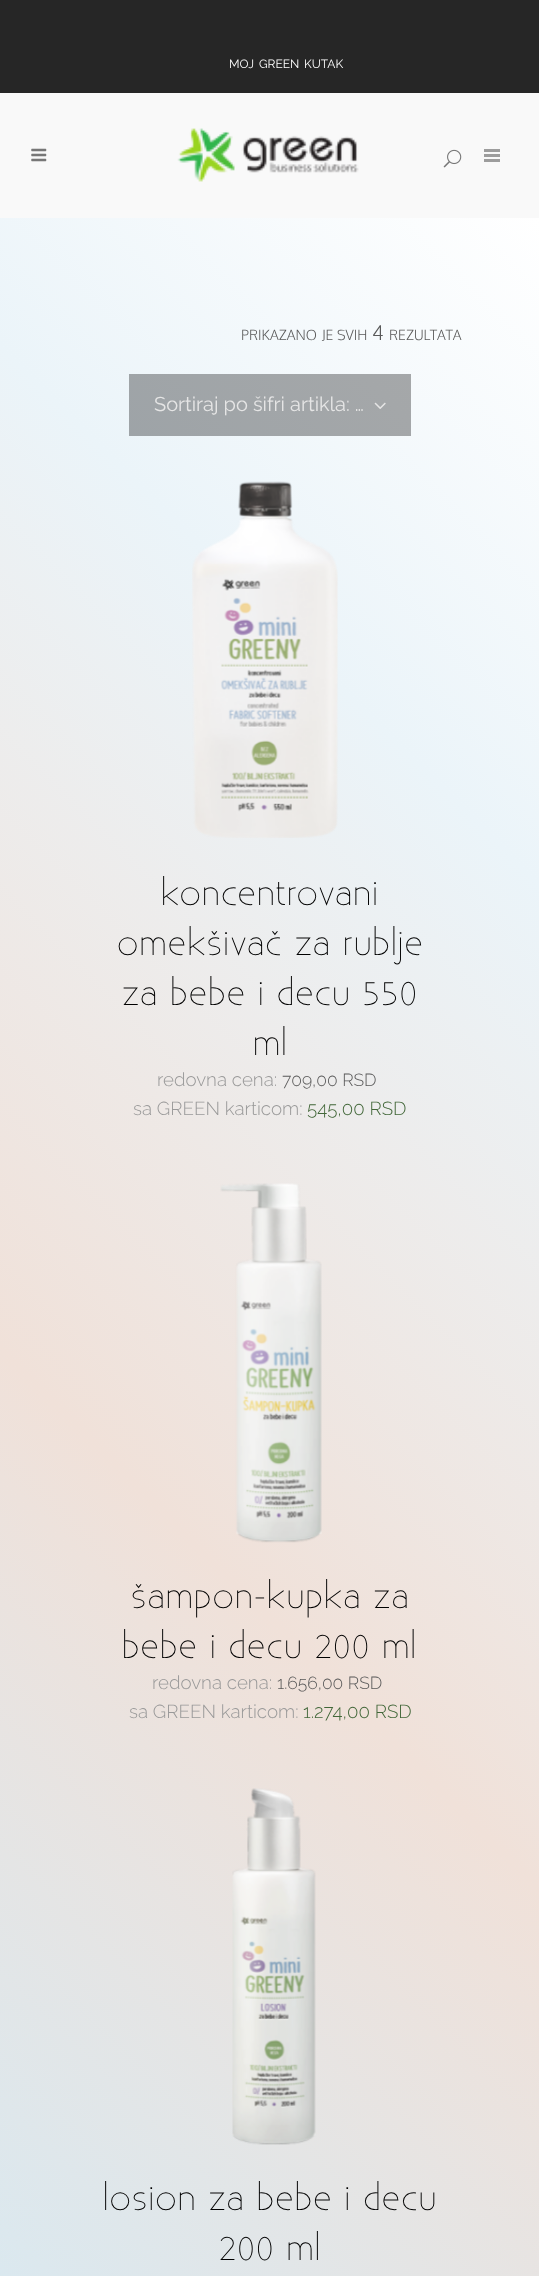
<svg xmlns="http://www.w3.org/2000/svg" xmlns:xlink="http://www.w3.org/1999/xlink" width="539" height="2276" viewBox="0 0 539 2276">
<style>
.cls-1{font:12px Raleway;fill:#ffffff}
.cls-2{font:300 14px Oxygen;fill:#595959}
.cls-3{font:300 20px Oxygen;fill:#595959}
.cls-4{font:20px Raleway;fill:#e5e5e5}
.cls-5{font:300 32.5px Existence;letter-spacing:1.25px;fill:#000000}
.cls-6{font:300 18.75px Raleway;fill:#999999}
.cls-7{font:300 17.5px Raleway;fill:#595959}
.cls-8{font:300 18.75px Raleway;fill:#426739}
</style>
<defs>
<linearGradient id="g1" gradientUnits="userSpaceOnUse" x1="-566" y1="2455" x2="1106" y2="783"><stop offset="0" stop-color="#ffffff"/><stop offset="0.2" stop-color="#d9e9f1"/><stop offset="0.5" stop-color="#f0e1d9"/><stop offset="0.8" stop-color="#ebf4f9"/><stop offset="1" stop-color="#ffffff"/></linearGradient>
<linearGradient id="g2" gradientUnits="userSpaceOnUse" x1="-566" y1="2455" x2="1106" y2="783"><stop offset="0" stop-color="#ababab"/><stop offset="0.2" stop-color="#919ca1"/><stop offset="0.5" stop-color="#a19791"/><stop offset="0.8" stop-color="#9da3a7"/><stop offset="1" stop-color="#ababab"/></linearGradient>
</defs>
<rect width="100%" height="100%" fill="#f9f9f9"/>
<rect fill="#262626" x="0" y="0" width="539" height="93"/>
<image xlink:href="image0.png" x="31" y="148" width="16" height="14"/>
<image xlink:href="image1.png" x="177" y="128" width="182" height="54"/>
<image xlink:href="image2.png" x="443" y="149" width="19" height="19"/>
<rect fill="#9d9d9d" x="484" y="154" width="16" height="3"/>
<rect fill="#9d9d9d" x="484" y="149" width="16" height="3"/>
<rect fill="#9d9d9d" x="484" y="159" width="16" height="3"/>
<rect fill="url(#g1)" x="0" y="218" width="539" height="2058"/>
<rect fill="url(#g2)" x="129" y="374" width="282" height="62"/>
<image xlink:href="image3.png" x="374" y="402" width="12" height="7"/>
<image xlink:href="image4.png" x="192" y="481" width="146" height="357"/>
<image xlink:href="image5.png" x="220" y="1183" width="102" height="360"/>
<image xlink:href="image6.png" x="232" y="1788" width="84" height="357"/>
<text class="cls-1" x="229" y="68">MOJ</text>
<text class="cls-1" x="259" y="68">GREEN</text>
<text class="cls-1" x="304" y="68">KUTAK</text>
<text class="cls-2" x="241" y="340">PRIKAZANO</text>
<text class="cls-2" x="322" y="340">JE</text>
<text class="cls-2" x="337" y="340">SVIH</text>
<text class="cls-3" x="372" y="340">4</text>
<text class="cls-2" x="389" y="340">REZULTATA</text>
<text class="cls-4" x="154" y="411">Sortiraj po šifri artikla: …</text>
<text class="cls-5" x="161" y="905">koncentrovani</text>
<text class="cls-5" x="117" y="955">omekšivač za rublje</text>
<text class="cls-5" x="122" y="1005">za bebe i decu 550</text>
<text class="cls-5" x="253" y="1055">ml</text>
<text class="cls-6" x="157" y="1086">redovna cena:</text>
<text class="cls-7" x="282" y="1086">709,00 RSD</text>
<text class="cls-6" x="133" y="1115">sa GREEN karticom:</text>
<text class="cls-8" x="307" y="1115">545,00 RSD</text>
<text class="cls-5" x="131" y="1608">šampon-kupka za</text>
<text class="cls-5" x="122" y="1658">bebe i decu 200 ml</text>
<text class="cls-6" x="152" y="1689">redovna cena:</text>
<text class="cls-7" x="277" y="1689">1.656,00 RSD</text>
<text class="cls-6" x="129" y="1718">sa GREEN karticom:</text>
<text class="cls-8" x="303" y="1718">1.274,00 RSD</text>
<text class="cls-5" x="103" y="2210">losion za bebe i decu</text>
<text class="cls-5" x="219" y="2260">200 ml</text>
</svg>
